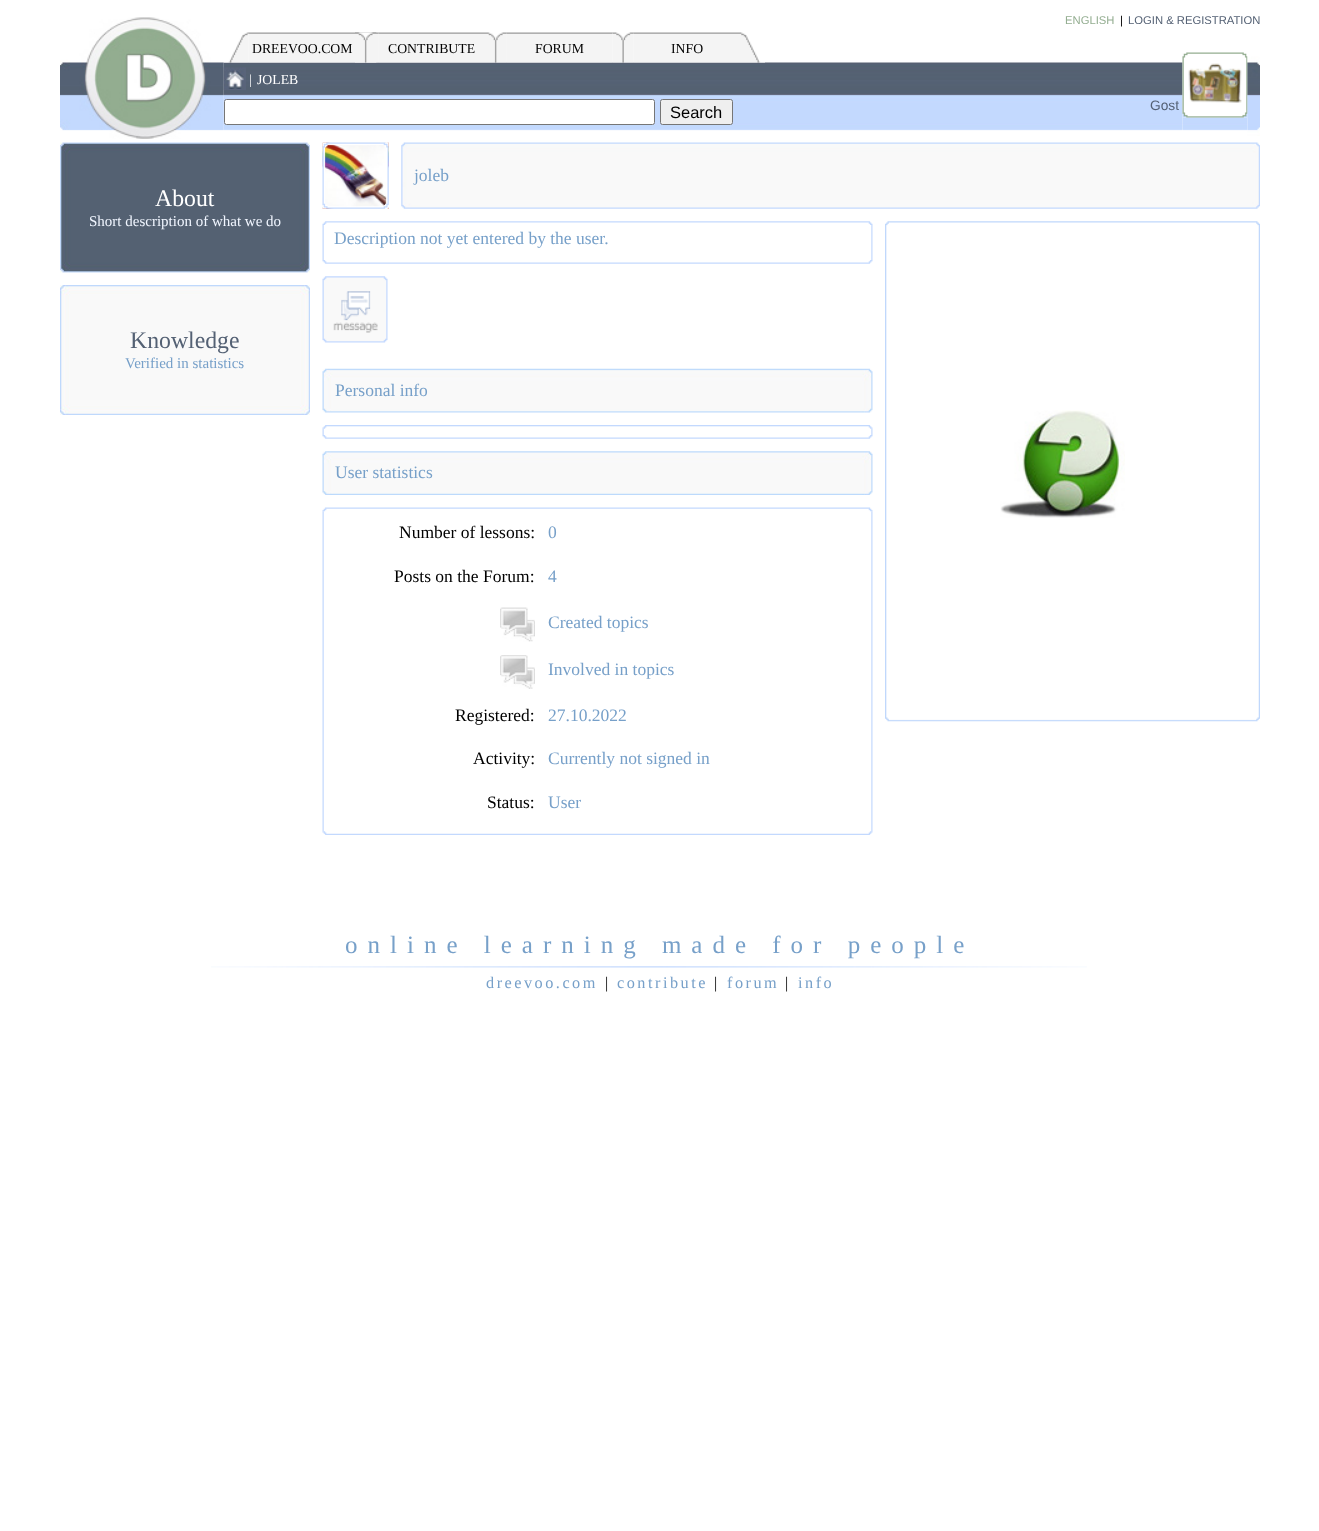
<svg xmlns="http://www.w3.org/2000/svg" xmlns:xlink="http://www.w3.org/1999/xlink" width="1319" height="1531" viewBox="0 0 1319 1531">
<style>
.cls-1{font:11.25px Liberation Sans;fill:#93ad90}
.cls-2{font:11.25px Liberation Sans;fill:#000000}
.cls-3{font:11.25px Liberation Sans;fill:#546174}
.cls-4{font:13.75px Liberation Serif;fill:#000000}
.cls-5{font:13.75px Liberation Serif;fill:#ffffff}
.cls-6{font:16.5px Liberation Sans;fill:#000000}
.cls-7{font:13.75px Liberation Sans;fill:#546174}
.cls-8{font:23.75px Liberation Serif;fill:#ffffff}
.cls-9{font:15px Liberation Serif;fill:#f1f6ff}
.cls-10{font:23.75px Liberation Serif;fill:#546174}
.cls-11{font:15px Liberation Serif;fill:#77a0c9}
.cls-12{font:17.5px Liberation Serif;fill:#77a0c9}
.cls-13{font:17.5px Liberation Serif;fill:#000000}
.cls-14{font:25px Liberation Serif;letter-spacing:10px;fill:#77a0c9}
.cls-15{font:16.25px Liberation Serif;letter-spacing:2.5px;fill:#77a0c9}
.cls-16{font:16.25px Liberation Serif;letter-spacing:2.5px;fill:#000000}
</style>
<rect width="100%" height="100%" fill="#ffffff"/>
<image xlink:href="image1.png" x="223" y="62" width="960" height="69"/>
<image xlink:href="image0.png" x="60" y="17" width="164" height="122"/>
<image xlink:href="image3.png" x="248" y="32" width="107" height="31"/>
<image xlink:href="image2.png" x="223" y="32" width="26" height="31"/>
<image xlink:href="image4.png" x="355" y="32" width="24" height="31"/>
<image xlink:href="image5.png" x="355" y="32" width="22" height="31"/>
<image xlink:href="image6.png" x="378" y="32" width="107" height="31"/>
<image xlink:href="image8.png" x="506" y="32" width="107" height="31"/>
<image xlink:href="image7.png" x="485" y="32" width="22" height="31"/>
<image xlink:href="image10.png" x="633" y="32" width="107" height="31"/>
<image xlink:href="image9.png" x="612" y="32" width="22" height="31"/>
<image xlink:href="image11.png" x="740" y="32" width="25" height="31"/>
<image xlink:href="image12.png" x="223" y="67" width="23" height="23"/>
<rect fill="#ffffff" stroke="#767676" x="224.5" y="99.5" width="430" height="25" rx="2"/>
<rect fill="#efefef" stroke="#767676" x="660.5" y="99.5" width="72" height="25" rx="2"/>
<image xlink:href="image13.png" x="1182" y="62" width="66" height="69"/>
<image xlink:href="image14.png" x="1182" y="53" width="66" height="65"/>
<image xlink:href="image15.png" x="1182" y="52" width="66" height="66"/>
<image xlink:href="image16.png" x="1247" y="56" width="13" height="80"/>
<image xlink:href="image17.png" x="60" y="142" width="250" height="131"/>
<image xlink:href="image18.png" x="60" y="285" width="250" height="130"/>
<image xlink:href="image19.png" x="322" y="142" width="67" height="67"/>
<image xlink:href="image20.png" x="322" y="142" width="67" height="67"/>
<image xlink:href="image21.png" x="401" y="142" width="859" height="67"/>
<image xlink:href="image22.png" x="322" y="221" width="551" height="4"/>
<image xlink:href="image23.png" x="322" y="225" width="551" height="35"/>
<image xlink:href="image24.png" x="322" y="260" width="551" height="4"/>
<image xlink:href="image25.png" x="322" y="276" width="66" height="67"/>
<image xlink:href="image26.png" x="322" y="368" width="551" height="45"/>
<image xlink:href="image28.png" x="322" y="428" width="551" height="7"/>
<image xlink:href="image27.png" x="322" y="425" width="551" height="4"/>
<image xlink:href="image24.png" x="322" y="435" width="551" height="4"/>
<image xlink:href="image29.png" x="322" y="451" width="551" height="44"/>
<image xlink:href="image31.png" x="322" y="511" width="551" height="321"/>
<image xlink:href="image30.png" x="322" y="507" width="551" height="5"/>
<image xlink:href="image32.png" x="500" y="607" width="35" height="35"/>
<image xlink:href="image33.png" x="500" y="655" width="35" height="34"/>
<image xlink:href="image34.png" x="322" y="831" width="551" height="4"/>
<image xlink:href="image35.png" x="1000" y="410" width="125" height="108"/>
<image xlink:href="image36.png" x="885" y="221" width="375" height="501"/>
<image xlink:href="image37.png" x="211" y="966" width="876" height="2"/>
<text class="cls-1" x="1065" y="24">ENGLISH</text>
<text class="cls-2" x="1120" y="24">|</text>
<text class="cls-3" x="1128" y="24">LOGIN &amp; REGISTRATION</text>
<text class="cls-4" x="252" y="53">DREEVOO.COM</text>
<text class="cls-4" x="388" y="53">CONTRIBUTE</text>
<text class="cls-4" x="535" y="53">FORUM</text>
<text class="cls-4" x="671" y="53">INFO</text>
<text class="cls-5" x="249" y="84">|</text>
<text class="cls-5" x="257" y="84">JOLEB</text>
<text class="cls-6" x="670" y="118">Search</text>
<text class="cls-7" x="1150" y="110">Gost</text>
<text class="cls-8" x="155" y="206">About</text>
<text class="cls-9" x="89" y="226">Short description of what we do</text>
<text class="cls-10" x="130" y="348">Knowledge</text>
<text class="cls-11" x="125" y="368">Verified in statistics</text>
<text class="cls-12" x="414" y="181">joleb</text>
<text class="cls-12" x="334" y="244">Description not yet entered by the user.</text>
<text class="cls-12" x="335" y="396">Personal info</text>
<text class="cls-12" x="335" y="478">User statistics</text>
<text class="cls-13" x="399" y="538">Number of lessons:</text>
<text class="cls-12" x="548" y="538">0</text>
<text class="cls-13" x="394" y="582">Posts on the Forum:</text>
<text class="cls-12" x="548" y="582">4</text>
<text class="cls-12" x="548" y="628">Created topics</text>
<text class="cls-12" x="548" y="675">Involved in topics</text>
<text class="cls-13" x="455" y="721">Registered:</text>
<text class="cls-12" x="548" y="721">27.10.2022</text>
<text class="cls-13" x="473" y="764">Activity:</text>
<text class="cls-12" x="548" y="764">Currently not signed in</text>
<text class="cls-13" x="487" y="808">Status:</text>
<text class="cls-12" x="548" y="808">User</text>
<text class="cls-14" x="345" y="953">online learning made for people</text>
<text class="cls-15" x="486" y="988">dreevoo.com</text>
<text class="cls-16" x="605" y="988">|</text>
<text class="cls-15" x="617" y="988">contribute</text>
<text class="cls-16" x="714" y="988">|</text>
<text class="cls-15" x="727" y="988">forum</text>
<text class="cls-16" x="785" y="988">|</text>
<text class="cls-15" x="798" y="988">info</text>
</svg>
